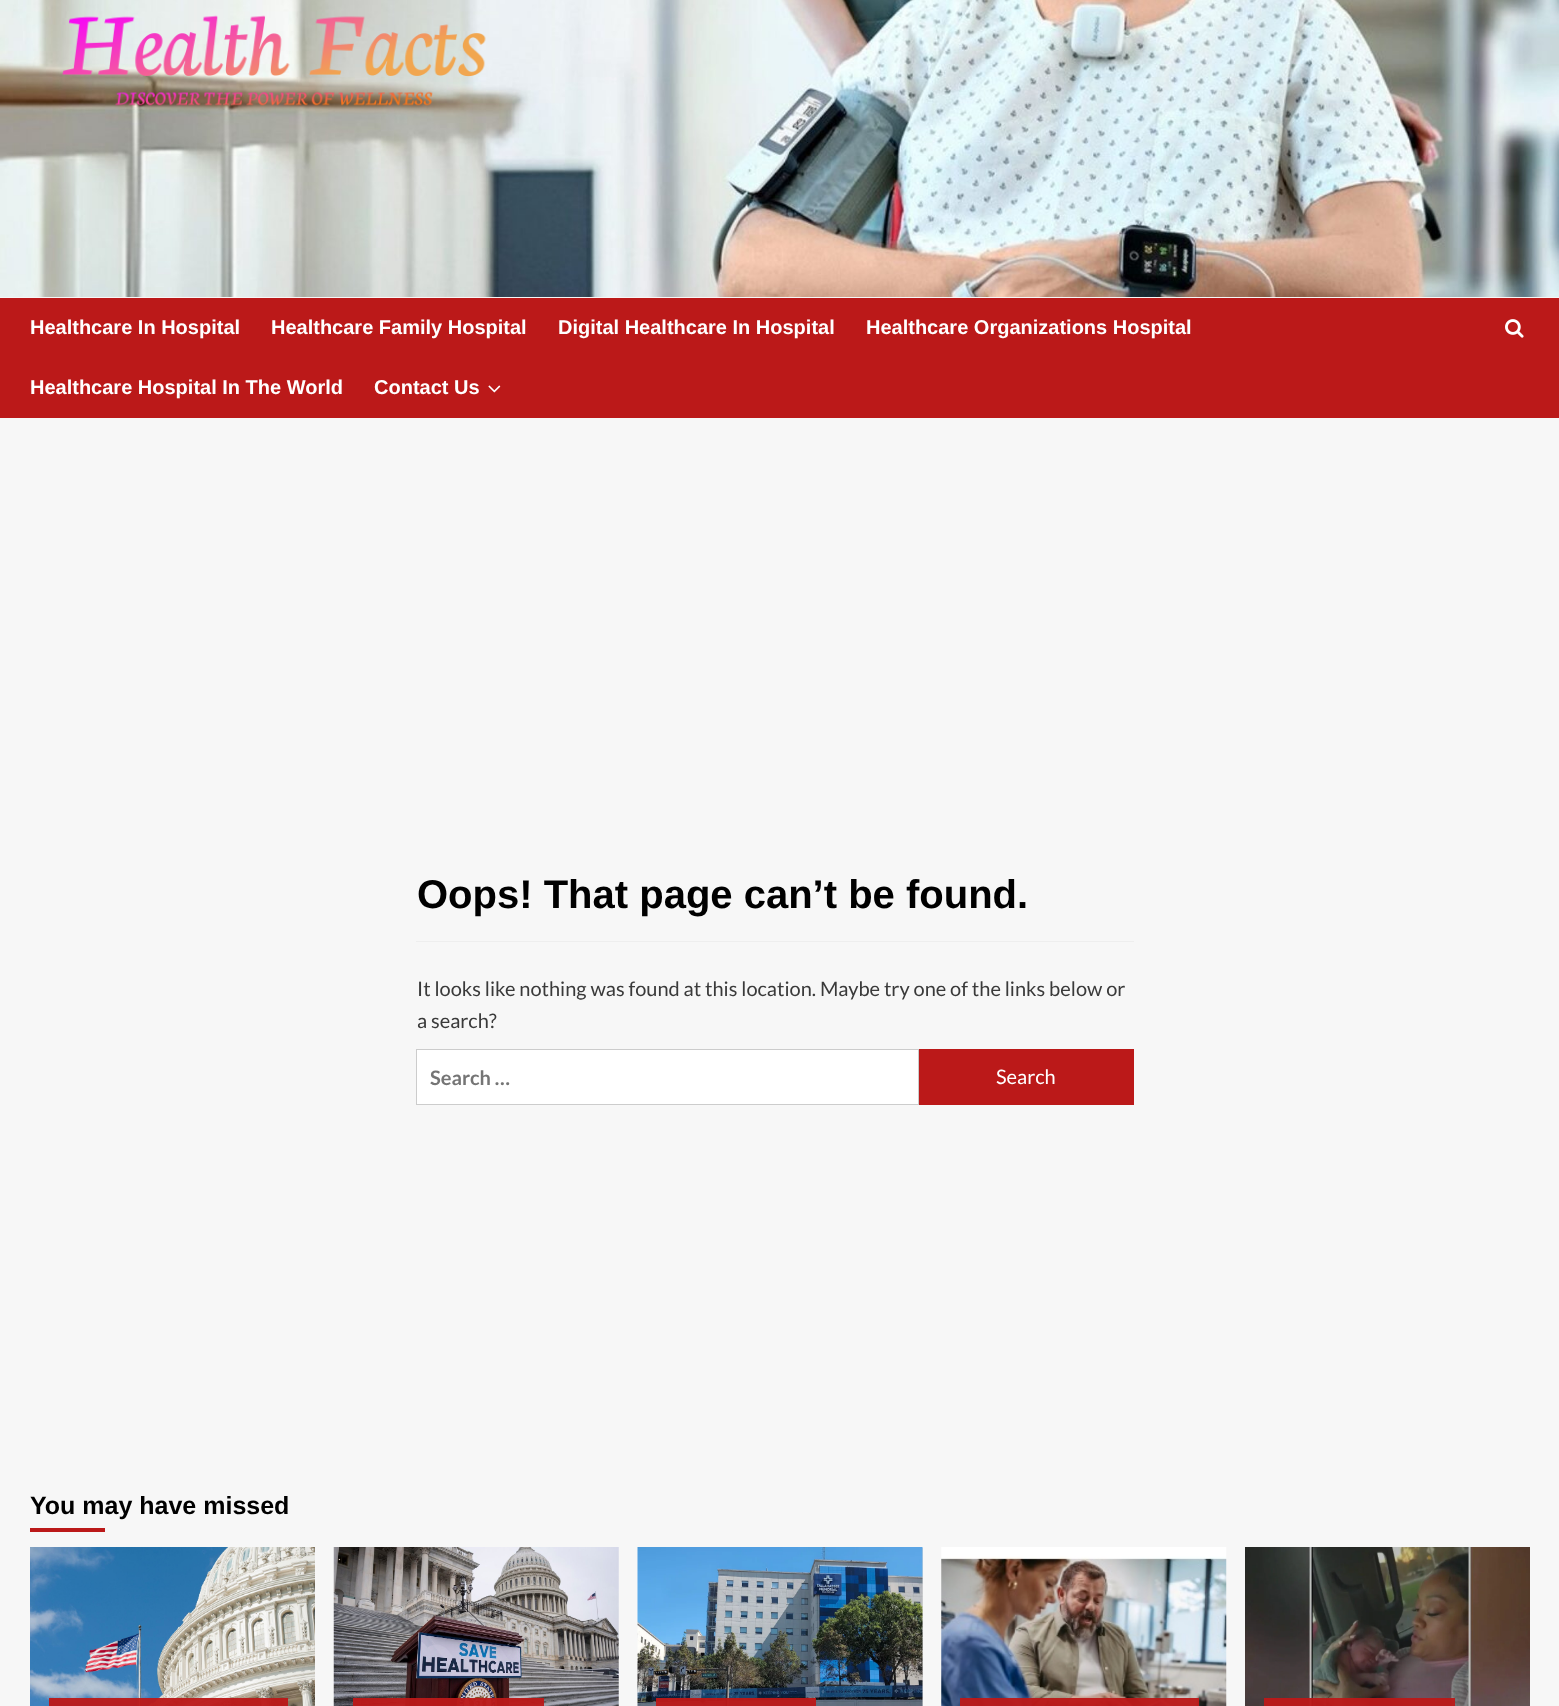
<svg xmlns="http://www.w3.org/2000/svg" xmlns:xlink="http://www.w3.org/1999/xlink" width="1559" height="1706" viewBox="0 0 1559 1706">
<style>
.cls-1{font:bold 20px Liberation Sans;fill:#ffffff}
.cls-2{font:bold 40px Liberation Sans;fill:#000000}
.cls-3{font:20px Lato;fill:#3a3a3a}
.cls-4{font:bold 20px Lato;fill:#757575}
.cls-5{font:20px Lato;fill:#ffffff}
.cls-6{font:bold 25px Liberation Sans;fill:#000000}
</style>
<rect width="100%" height="100%" fill="#f7f7f7"/>
<image xlink:href="image0.png" x="0" y="0" width="1559" height="297"/>
<image xlink:href="image1.png" x="62" y="15" width="424" height="91"/>
<rect fill="#bb1919" x="0" y="298" width="1559" height="120"/>
<image xlink:href="image2.png" x="488" y="385" width="13" height="8"/>
<image xlink:href="image3.png" x="1505" y="319" width="19" height="19"/>
<rect fill="#eeeeee" x="416" y="941" width="718" height="1"/>
<rect fill="#ffffff" stroke="#cccccc" x="416.5" y="1049.5" width="502" height="55"/>
<rect fill="#bb1919" x="919" y="1049" width="215" height="56"/>
<rect fill="#bb1919" x="30" y="1528" width="75" height="4"/>
<image xlink:href="image4.png" x="30" y="1547" width="285" height="159"/>
<rect fill="#bb1919" fill-opacity="0.96" x="49" y="1698" width="239" height="8"/>
<image xlink:href="image5.png" x="333" y="1547" width="286" height="159"/>
<rect fill="#bb1919" fill-opacity="0.96" x="353" y="1698" width="191" height="8"/>
<rect fill="#d8d8d8" x="922" y="1548" width="1" height="158"/>
<image xlink:href="image6.png" x="637" y="1547" width="286" height="159"/>
<rect fill="#bb1919" fill-opacity="0.96" x="656" y="1698" width="160" height="8"/>
<image xlink:href="image7.png" x="941" y="1547" width="286" height="159"/>
<rect fill="#bb1919" fill-opacity="0.96" x="960" y="1698" width="239" height="8"/>
<image xlink:href="image8.png" x="1245" y="1547" width="285" height="159"/>
<rect fill="#bb1919" fill-opacity="0.96" x="1264" y="1698" width="191" height="8"/>
<text class="cls-1" x="30" y="334">Healthcare In Hospital</text>
<text class="cls-1" x="271" y="334">Healthcare Family Hospital</text>
<text class="cls-1" x="558" y="334">Digital Healthcare In Hospital</text>
<text class="cls-1" x="866" y="334">Healthcare Organizations Hospital</text>
<text class="cls-1" x="30" y="394">Healthcare Hospital In The World</text>
<text class="cls-1" x="374" y="394">Contact Us</text>
<text class="cls-2" x="417" y="908">Oops! That page can’t be found.</text>
<text class="cls-3"><tspan x="417" y="996">It looks like nothing was found at this location. Maybe try one of the links below or</tspan><tspan x="417" y="1028">a search?</tspan></text>
<text class="cls-4" x="430" y="1085">Search …</text>
<text class="cls-5" x="996" y="1084">Search</text>
<text class="cls-6" x="30" y="1514">You may have missed</text>
</svg>
